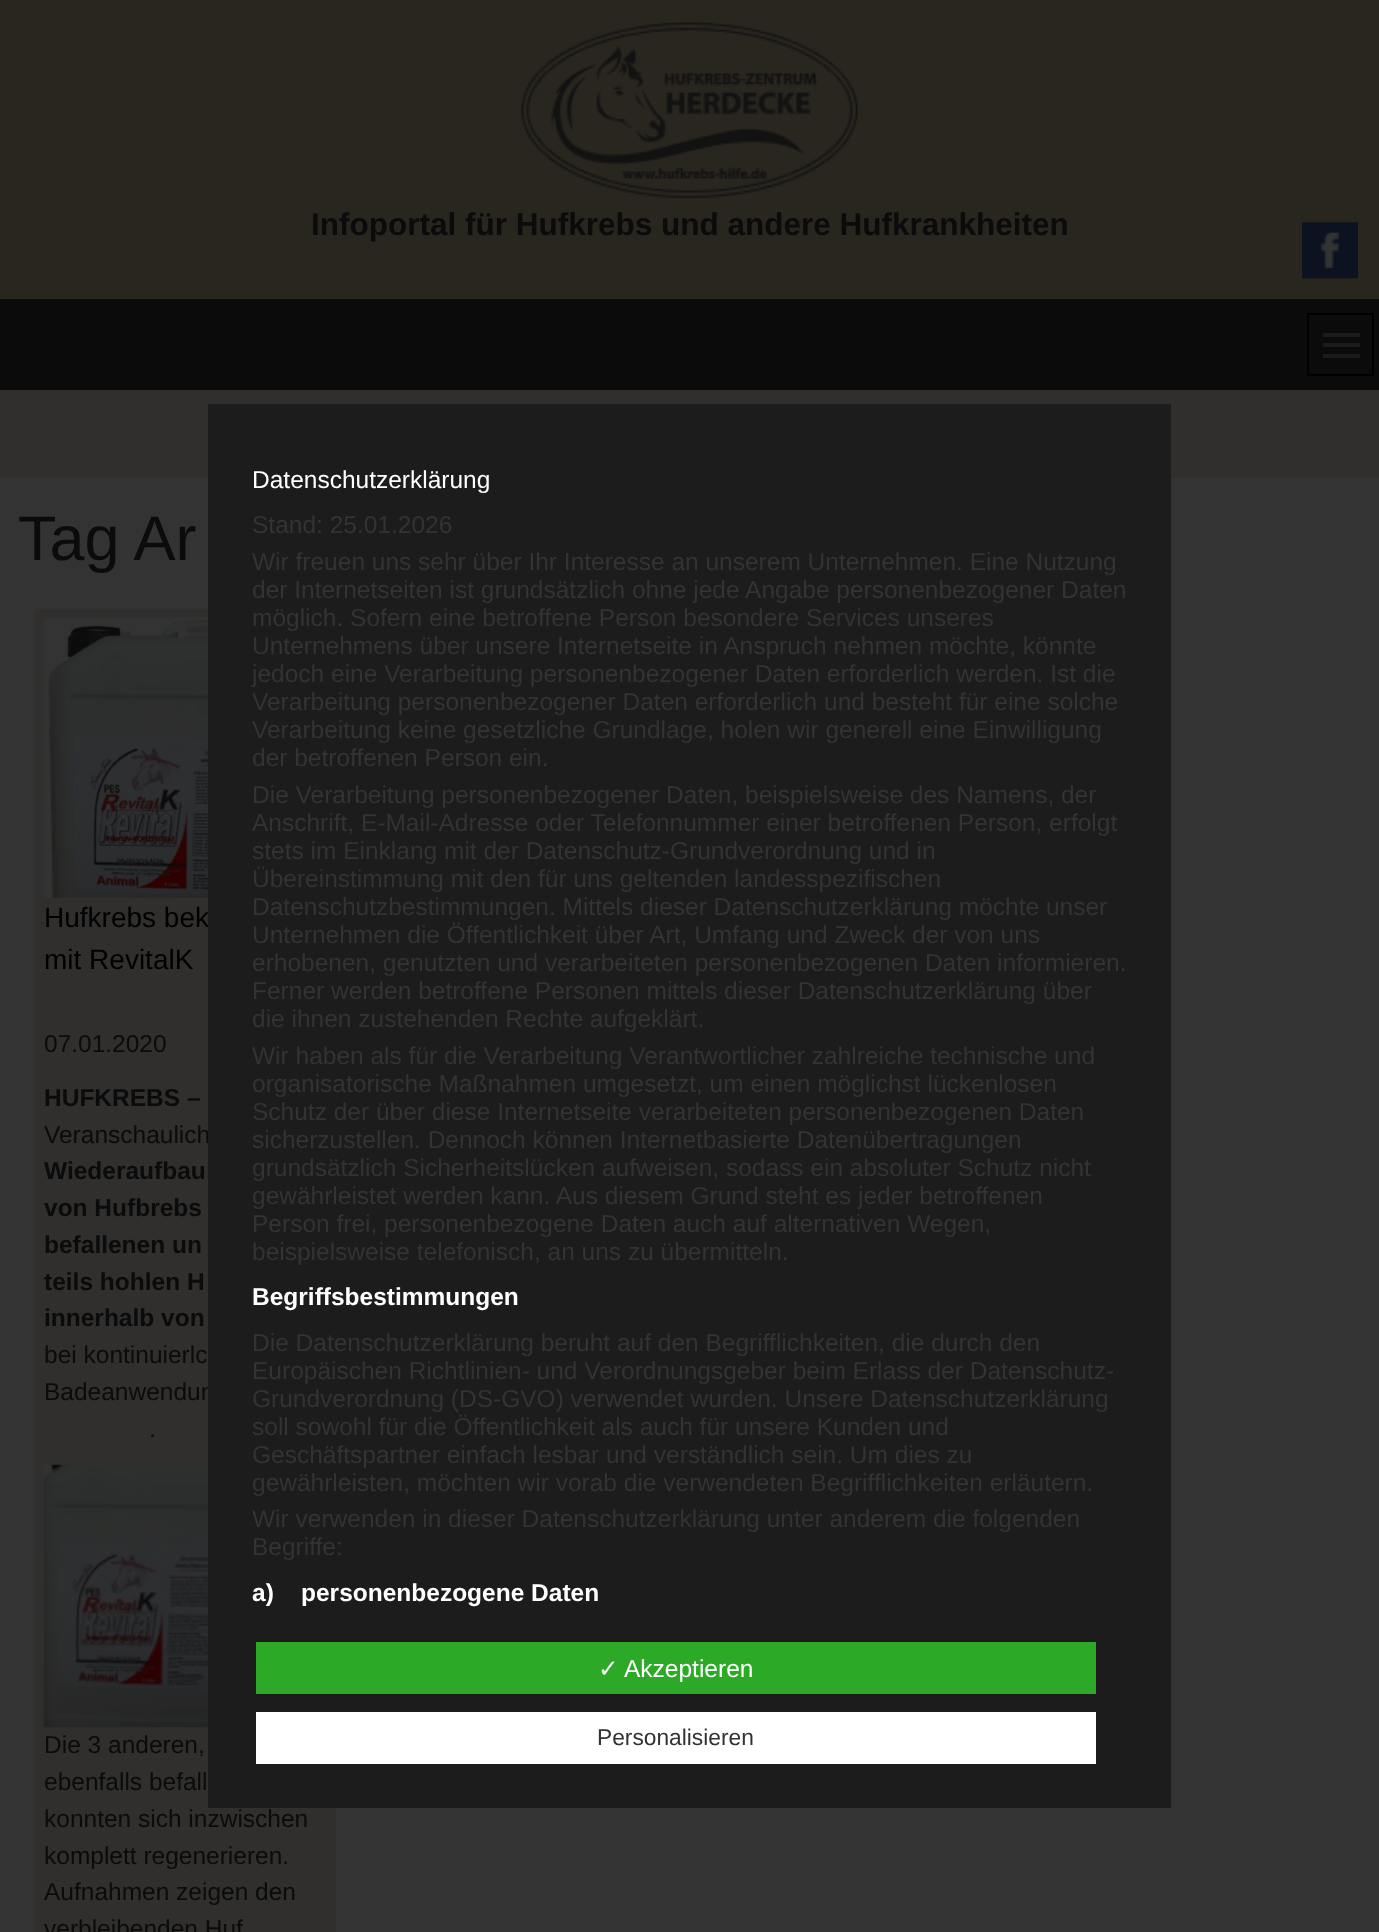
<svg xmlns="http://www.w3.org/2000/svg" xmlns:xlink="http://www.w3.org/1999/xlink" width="1379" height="1932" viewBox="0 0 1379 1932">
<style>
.cls-1{font:bold 31.5px Liberation Sans;fill:#0b0b0b}
.cls-2{font:63px Liberation Sans;fill:#0b0b0b}
.cls-3{font:28px Liberation Sans;fill:#000000}
.cls-4{font:24.5px Liberation Sans;fill:#0b0b0b}
.cls-5{font:bold 24.5px Liberation Sans;fill:#0b0b0b}
.cls-6{font:24.5px Liberation Sans;fill:#ffffff}
.cls-7{font:24.5px Liberation Sans;fill:#333333}
.cls-8{font:bold 24.5px Liberation Sans;fill:#ffffff}
.cls-9{font:24.5px DejaVu Sans;fill:#ffffff}
.cls-10{font:22.75px Liberation Sans;fill:#333333}
</style>
<rect width="100%" height="100%" fill="#302f2e"/>
<rect fill="#29251f" x="0" y="0" width="1379" height="299"/>
<image xlink:href="image0.png" x="521" y="22" width="337" height="177"/>
<image xlink:href="image1.png" x="1302" y="222" width="56" height="57"/>
<rect fill="#0b0b0b" x="0" y="299" width="1379" height="91"/>
<rect fill="none" stroke="#000000" stroke-width="2" x="1308" y="314" width="65" height="61"/>
<rect fill="#1b1b1b" x="1323" y="333" width="37" height="4"/>
<rect fill="#1b1b1b" x="1323" y="343" width="37" height="4"/>
<rect fill="#1b1b1b" x="1323" y="354" width="37" height="4"/>
<rect fill="#333333" x="0" y="478" width="1379" height="1454"/>
<rect fill="#302f2e" x="35" y="609" width="301" height="1323"/>
<image xlink:href="image2.png" x="43" y="617" width="165" height="281"/>
<image xlink:href="image3.png" x="43" y="1464" width="165" height="264"/>
<text class="cls-1" x="311" y="235">Infoportal für Hufkrebs und andere Hufkrankheiten</text>
<text class="cls-2" x="18" y="560">Tag Ar</text>
<text class="cls-3"><tspan x="44" y="927">Hufkrebs bek</tspan><tspan x="44" y="969">mit RevitalK</tspan></text>
<text class="cls-4" x="44" y="1052">07.01.2020</text>
<text class="cls-5" x="44" y="1106">HUFKREBS –</text>
<text class="cls-4" x="44" y="1143">Veranschaulich</text>
<text class="cls-5"><tspan x="44" y="1179">Wiederaufbau</tspan><tspan x="44" y="1216">von Hufbrebs</tspan><tspan x="44" y="1253">befallenen un</tspan><tspan x="44" y="1290">teils hohlen H</tspan><tspan x="44" y="1326">innerhalb von</tspan></text>
<text class="cls-4"><tspan x="44" y="1363">bei kontinuierlc</tspan><tspan x="44" y="1400">Badeanwendun</tspan></text>
<text class="cls-4" x="149" y="1437">.</text>
<text class="cls-4"><tspan x="44" y="1753">Die 3 anderen,</tspan><tspan x="44" y="1790">ebenfalls befall</tspan><tspan x="44" y="1827">konnten sich inzwischen</tspan><tspan x="44" y="1864">komplett regenerieren.</tspan><tspan x="44" y="1900">Aufnahmen zeigen den</tspan><tspan x="44" y="1937">verbleibenden Huf</tspan></text>
<rect fill="#1d1c1c" x="208" y="404" width="963" height="1404"/>
<text class="cls-6" x="252" y="488">Datenschutzerklärung</text>
<text class="cls-7"><tspan x="252" y="533">Stand: 25.01.2026</tspan><tspan x="252" y="570">Wir freuen uns sehr über Ihr Interesse an unserem Unternehmen. Eine Nutzung</tspan><tspan x="252" y="598">der Internetseiten ist grundsätzlich ohne jede Angabe personenbezogener Daten</tspan><tspan x="252" y="626">möglich. Sofern eine betroffene Person besondere Services unseres</tspan><tspan x="252" y="654">Unternehmens über unsere Internetseite in Anspruch nehmen möchte, könnte</tspan><tspan x="252" y="682">jedoch eine Verarbeitung personenbezogener Daten erforderlich werden. Ist die</tspan><tspan x="252" y="710">Verarbeitung personenbezogener Daten erforderlich und besteht für eine solche</tspan><tspan x="252" y="738">Verarbeitung keine gesetzliche Grundlage, holen wir generell eine Einwilligung</tspan><tspan x="252" y="766">der betroffenen Person ein.</tspan><tspan x="252" y="803">Die Verarbeitung personenbezogener Daten, beispielsweise des Namens, der</tspan><tspan x="252" y="831">Anschrift, E-Mail-Adresse oder Telefonnummer einer betroffenen Person, erfolgt</tspan><tspan x="252" y="859">stets im Einklang mit der Datenschutz-Grundverordnung und in</tspan><tspan x="252" y="887">Übereinstimmung mit den für uns geltenden landesspezifischen</tspan><tspan x="252" y="915">Datenschutzbestimmungen. Mittels dieser Datenschutzerklärung möchte unser</tspan><tspan x="252" y="943">Unternehmen die Öffentlichkeit über Art, Umfang und Zweck der von uns</tspan><tspan x="252" y="971">erhobenen, genutzten und verarbeiteten personenbezogenen Daten informieren.</tspan><tspan x="252" y="999">Ferner werden betroffene Personen mittels dieser Datenschutzerklärung über</tspan><tspan x="252" y="1027">die ihnen zustehenden Rechte aufgeklärt.</tspan><tspan x="252" y="1064">Wir haben als für die Verarbeitung Verantwortlicher zahlreiche technische und</tspan><tspan x="252" y="1092">organisatorische Maßnahmen umgesetzt, um einen möglichst lückenlosen</tspan><tspan x="252" y="1120">Schutz der über diese Internetseite verarbeiteten personenbezogenen Daten</tspan><tspan x="252" y="1148">sicherzustellen. Dennoch können Internetbasierte Datenübertragungen</tspan><tspan x="252" y="1176">grundsätzlich Sicherheitslücken aufweisen, sodass ein absoluter Schutz nicht</tspan><tspan x="252" y="1204">gewährleistet werden kann. Aus diesem Grund steht es jeder betroffenen</tspan><tspan x="252" y="1232">Person frei, personenbezogene Daten auch auf alternativen Wegen,</tspan><tspan x="252" y="1260">beispielsweise telefonisch, an uns zu übermitteln.</tspan></text>
<text class="cls-8" x="252" y="1305">Begriffsbestimmungen</text>
<text class="cls-7"><tspan x="252" y="1351">Die Datenschutzerklärung beruht auf den Begrifflichkeiten, die durch den</tspan><tspan x="252" y="1379">Europäischen Richtlinien- und Verordnungsgeber beim Erlass der Datenschutz-</tspan><tspan x="252" y="1407">Grundverordnung (DS-GVO) verwendet wurden. Unsere Datenschutzerklärung</tspan><tspan x="252" y="1435">soll sowohl für die Öffentlichkeit als auch für unsere Kunden und</tspan><tspan x="252" y="1463">Geschäftspartner einfach lesbar und verständlich sein. Um dies zu</tspan><tspan x="252" y="1491">gewährleisten, möchten wir vorab die verwendeten Begrifflichkeiten erläutern.</tspan><tspan x="252" y="1527">Wir verwenden in dieser Datenschutzerklärung unter anderem die folgenden</tspan><tspan x="252" y="1555">Begriffe:</tspan></text>
<text class="cls-8" xml:space="preserve" x="252" y="1601">a)    personenbezogene Daten</text>
<rect fill="#2caa27" x="256" y="1642" width="840" height="52"/>
<text class="cls-9" x="598" y="1677">✓</text>
<text class="cls-6" x="624" y="1677">Akzeptieren</text>
<rect fill="#ffffff" x="256" y="1712" width="840" height="52"/>
<text class="cls-10" x="597" y="1745">Personalisieren</text>
</svg>
